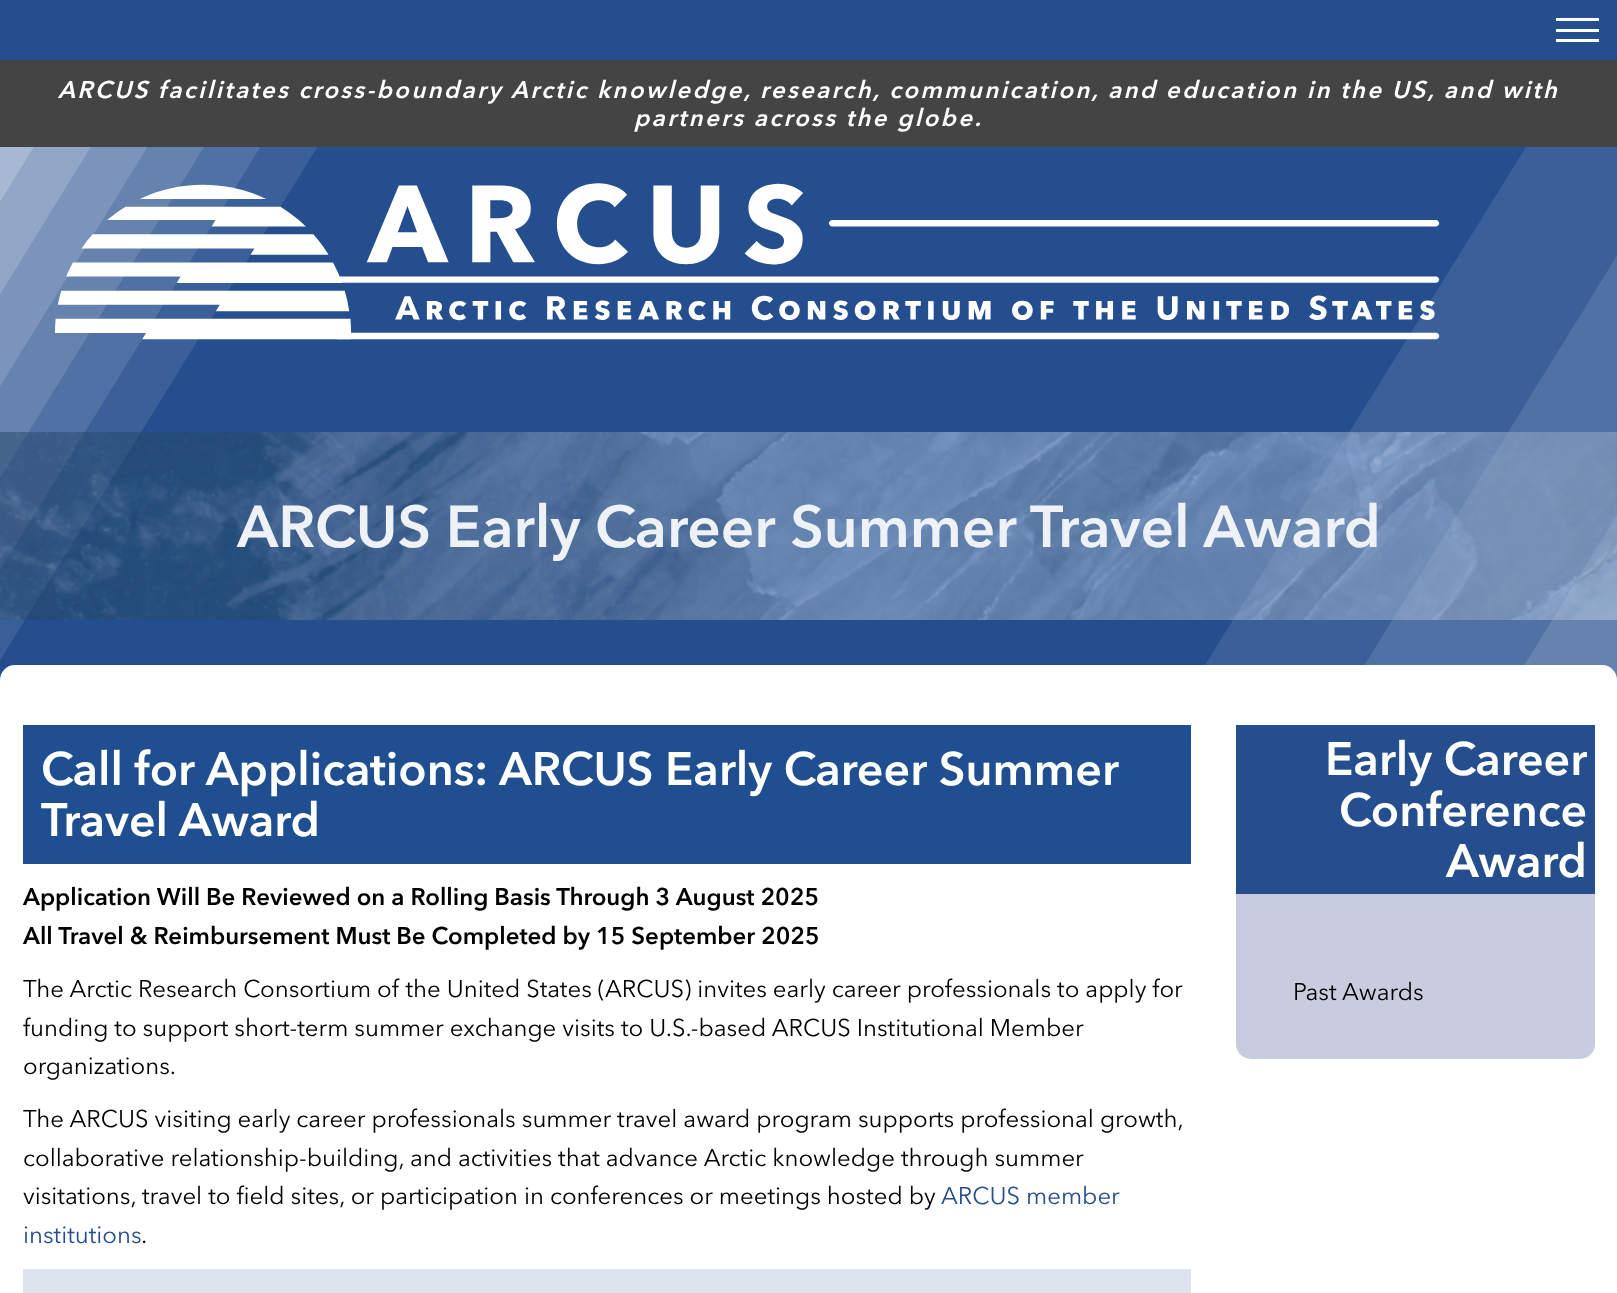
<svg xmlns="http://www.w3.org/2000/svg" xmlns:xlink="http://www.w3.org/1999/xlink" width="1617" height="1293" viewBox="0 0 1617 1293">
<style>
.cls-1{font:italic 600 24px Avenir Next;letter-spacing:2.4px;fill:#fffffe}
.cls-2{font:600 58.5px Avenir Next;fill:#eef1f6}
.cls-3{font:600 46.5px Avenir Next;fill:#fffffe}
.cls-4{font:600 24px Avenir Next;fill:#000000}
.cls-5{font:24px Avenir Next;fill:#000000}
.cls-6{font:24px Avenir Next;fill:#254e8e}
</style>
<rect width="100%" height="100%" fill="#254e8e"/>
<image xlink:href="image0.png" x="1205" y="147" width="412" height="533"/>
<rect fill="#ffffff" x="1556" y="18" width="43" height="3"/>
<rect fill="#ffffff" x="1556" y="29" width="43" height="3"/>
<rect fill="#ffffff" x="1556" y="39" width="43" height="3"/>
<rect fill="#444444" x="0" y="60" width="1617" height="87"/>
<image xlink:href="image1.png" x="0" y="147" width="1440" height="513"/>
<image xlink:href="image2.png" x="0" y="432" width="1617" height="188"/>
<rect fill="#ffffff" x="0" y="665" width="1617" height="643" rx="15"/>
<rect fill="#1f4f90" x="23" y="725" width="1168" height="139"/>
<rect fill="#dee4ee" x="23" y="1269" width="1168" height="24"/>
<rect fill="#c9cbdf" x="1236" y="725" width="359" height="334" rx="15"/>
<rect fill="#254e8e" x="1236" y="725" width="359" height="169"/>
<text class="cls-1" x="58" y="98">ARCUS facilitates cross-boundary Arctic knowledge, research, communication, and education in the US, and with</text>
<text class="cls-1" x="634" y="126">partners across the globe.</text>
<text class="cls-2" x="237" y="547">ARCUS Early Career Summer Travel Award</text>
<text class="cls-3"><tspan x="41" y="785">Call for Applications: ARCUS Early Career Summer</tspan><tspan x="41" y="836">Travel Award</tspan></text>
<text class="cls-4"><tspan x="23" y="905">Application Will Be Reviewed on a Rolling Basis Through 3 August 2025</tspan><tspan x="23" y="944">All Travel &amp; Reimbursement Must Be Completed by 15 September 2025</tspan></text>
<text class="cls-5"><tspan x="23" y="997">The Arctic Research Consortium of the United States (ARCUS) invites early career professionals to apply for</tspan><tspan x="23" y="1036">funding to support short-term summer exchange visits to U.S.-based ARCUS Institutional Member</tspan><tspan x="23" y="1074">organizations.</tspan></text>
<text class="cls-5"><tspan x="23" y="1127">The ARCUS visiting early career professionals summer travel award program supports professional growth,</tspan><tspan x="23" y="1166">collaborative relationship-building, and activities that advance Arctic knowledge through summer</tspan><tspan x="23" y="1204">visitations, travel to field sites, or participation in conferences or meetings hosted by</tspan></text>
<text class="cls-6" x="941" y="1204">ARCUS member</text>
<text class="cls-6" x="23" y="1243">institutions</text>
<text class="cls-5" x="141" y="1243">.</text>
<text class="cls-3" x="1325" y="775">Early Career</text>
<text class="cls-3" x="1339" y="826">Conference</text>
<text class="cls-3" x="1446" y="877">Award</text>
<text class="cls-5" x="1293" y="1000">Past Awards</text>
</svg>
